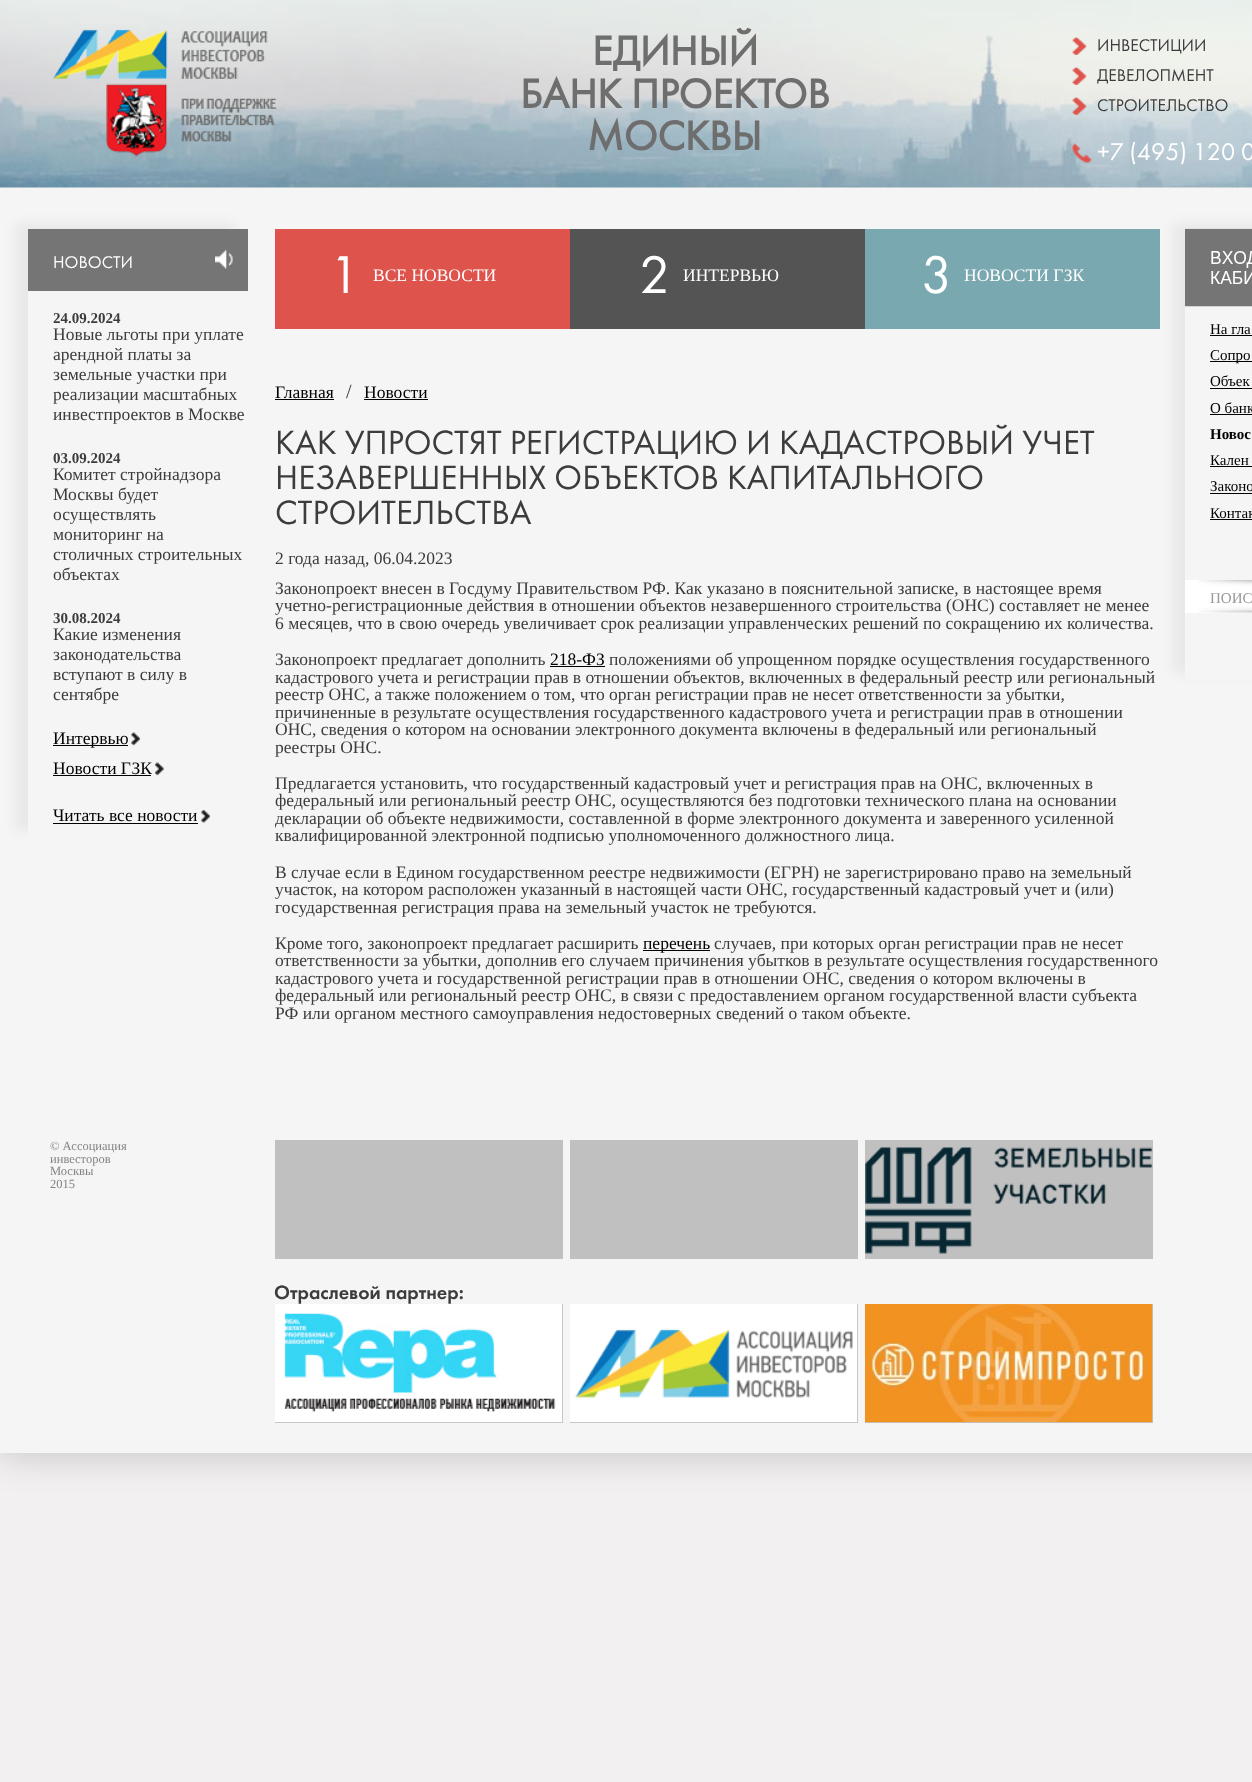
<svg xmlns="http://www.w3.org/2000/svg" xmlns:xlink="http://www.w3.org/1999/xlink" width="1252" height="1782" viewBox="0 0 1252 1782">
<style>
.cls-1{font:bold 42.5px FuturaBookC;fill:#6e6e6e}
.cls-2{font:17.5px FuturaBookC;fill:#3c3c3c}
.cls-3{font:25px FuturaBookC;fill:#ffffff}
.cls-4{font:17.5px FuturaBookC;fill:#ffffff}
.cls-5{font:bold 15px Liberation Serif;fill:#3c3c3c}
.cls-6{font:17.5px Liberation Serif;fill:#3c3c3c}
.cls-7{font:17.5px Liberation Serif;fill:#000000}
.cls-8{font:55px FuturaBookC;fill:#ffffff}
.cls-9{font:17.5px Liberation Serif;fill:#ffffff}
.cls-10{font:20px Liberation Serif;fill:#3c3c3c}
.cls-11{font:35px FuturaBookC;fill:#3c3c3c}
.cls-12{font:15px Liberation Serif;fill:#000000}
.cls-13{font:bold 15px Liberation Serif;fill:#000000}
.cls-14{font:15px Liberation Serif;fill:#999999}
.cls-15{font:12.5px Liberation Serif;fill:#858384}
.cls-16{font:600 20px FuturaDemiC;fill:#3c3c3c}
</style>
<defs>
<clipPath id="clip1"><path d="M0 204H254V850H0ZM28 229H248V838H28Z" clip-rule="evenodd"/></clipPath>
<clipPath id="clip2"><path d="M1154 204H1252V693H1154ZM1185 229H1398V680H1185Z" clip-rule="evenodd"/></clipPath>
</defs>
<rect width="100%" height="100%" fill="#f2f0f1"/>
<rect fill="#000000" fill-opacity="0.2" filter="blur(19px)" x="0" y="0" width="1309" height="1453"/>
<rect fill="#f5f5f5" x="0" y="187" width="1252" height="1266"/>
<image xlink:href="image0.png" x="0" y="0" width="1252" height="188"/>
<image xlink:href="image1.png" x="52" y="29" width="225" height="128"/>
<image xlink:href="image2.png" x="1072" y="37" width="15" height="18"/>
<image xlink:href="image3.png" x="1072" y="67" width="15" height="18"/>
<image xlink:href="image4.png" x="1072" y="97" width="15" height="18"/>
<image xlink:href="image5.png" x="1072" y="143" width="20" height="20"/>
<g clip-path="url(#clip1)">
<rect fill="#000000" fill-opacity="0.05" filter="blur(6px)" x="15" y="223" width="220" height="608"/>
</g>
<rect fill="#757575" x="28" y="229" width="220" height="62"/>
<image xlink:href="image6.png" x="215" y="250" width="18" height="19"/>
<image xlink:href="image7.png" x="131" y="732" width="9" height="14"/>
<rect fill="#000000" x="53" y="745" width="75" height="1"/>
<image xlink:href="image8.png" x="155" y="762" width="9" height="14"/>
<rect fill="#000000" x="53" y="775" width="98" height="1"/>
<image xlink:href="image9.png" x="201" y="810" width="9" height="13"/>
<rect fill="#000000" x="53" y="823" width="145" height="1"/>
<rect fill="#de534c" x="275" y="229" width="295" height="100"/>
<rect fill="#545454" x="570" y="229" width="295" height="100"/>
<rect fill="#79a8b0" x="865" y="229" width="295" height="100"/>
<rect fill="#000000" x="275" y="399" width="59" height="1"/>
<rect fill="#000000" x="364" y="399" width="64" height="1"/>
<rect fill="#000000" x="550" y="666" width="55" height="1"/>
<rect fill="#000000" x="643" y="950" width="67" height="1"/>
<g clip-path="url(#clip2)">
<rect fill="#000000" fill-opacity="0.05" filter="blur(6px)" x="1173" y="223" width="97" height="451"/>
</g>
<image xlink:href="image10.png" x="1185" y="228" width="67" height="79"/>
<rect fill="#000000" x="1210" y="335" width="42" height="1"/>
<rect fill="#000000" x="1210" y="361" width="42" height="1"/>
<rect fill="#000000" x="1210" y="388" width="42" height="1"/>
<rect fill="#000000" x="1210" y="414" width="42" height="1"/>
<rect fill="#000000" x="1210" y="466" width="42" height="1"/>
<rect fill="#000000" x="1210" y="493" width="42" height="1"/>
<rect fill="#000000" x="1210" y="519" width="42" height="1"/>
<rect fill="#ffffff" x="1185" y="580" width="67" height="33"/>
<image xlink:href="image11.png" x="1198" y="580" width="54" height="33"/>
<rect fill="#c0c0c0" x="275" y="1140" width="288" height="119"/>
<rect fill="#c0c0c0" x="570" y="1140" width="288" height="119"/>
<rect fill="#c0c0c0" x="865" y="1140" width="288" height="119"/>
<image xlink:href="image12.png" x="865" y="1147" width="288" height="107"/>
<rect fill="#c0c0c0" x="275" y="1304" width="288" height="119"/>
<image xlink:href="image13.png" x="275" y="1304" width="288" height="119"/>
<rect fill="#c0c0c0" x="570" y="1304" width="288" height="119"/>
<image xlink:href="image14.png" x="570" y="1304" width="288" height="119"/>
<rect fill="#c0c0c0" x="865" y="1304" width="288" height="119"/>
<image xlink:href="image15.png" x="865" y="1304" width="288" height="119"/>
<text class="cls-1" x="592" y="65">ЕДИНЫЙ</text>
<text class="cls-1" x="520" y="108">БАНК ПРОЕКТОВ</text>
<text class="cls-1" x="587" y="150">МОСКВЫ</text>
<text class="cls-2"><tspan x="1097" y="51">ИНВЕСТИЦИИ</tspan><tspan x="1097" y="81">ДЕВЕЛОПМЕНТ</tspan><tspan x="1097" y="111">СТРОИТЕЛЬСТВО</tspan></text>
<text class="cls-3" x="1097" y="160">+7 (495) 120 0</text>
<text class="cls-4" x="53" y="268">НОВОСТИ</text>
<text class="cls-5" x="53" y="323">24.09.2024</text>
<text class="cls-6"><tspan x="53" y="340">Новые льготы при уплате</tspan><tspan x="53" y="360">арендной платы за</tspan><tspan x="53" y="380">земельные участки при</tspan><tspan x="53" y="400">реализации масштабных</tspan><tspan x="53" y="420">инвестпроектов в Москве</tspan></text>
<text class="cls-5" x="53" y="463">03.09.2024</text>
<text class="cls-6"><tspan x="53" y="480">Комитет стройнадзора</tspan><tspan x="53" y="500">Москвы будет</tspan><tspan x="53" y="520">осуществлять</tspan><tspan x="53" y="540">мониторинг на</tspan><tspan x="53" y="560">столичных строительных</tspan><tspan x="53" y="580">объектах</tspan></text>
<text class="cls-5" x="53" y="623">30.08.2024</text>
<text class="cls-6"><tspan x="53" y="640">Какие изменения</tspan><tspan x="53" y="660">законодательства</tspan><tspan x="53" y="680">вступают в силу в</tspan><tspan x="53" y="700">сентябре</tspan></text>
<text class="cls-7"><tspan x="53" y="744">Интервью</tspan><tspan x="53" y="774">Новости ГЗК</tspan></text>
<text class="cls-7" x="53" y="821">Читать все новости</text>
<text class="cls-8" x="329" y="293">1</text>
<text class="cls-9" x="373" y="281">ВСЕ НОВОСТИ</text>
<text class="cls-8" x="639" y="293">2</text>
<text class="cls-9" x="683" y="281">ИНТЕРВЬЮ</text>
<text class="cls-8" x="921" y="293">3</text>
<text class="cls-9" x="964" y="281">НОВОСТИ ГЗК</text>
<text class="cls-7" x="275" y="398">Главная</text>
<text class="cls-10" x="346" y="398">/</text>
<text class="cls-7" x="364" y="398">Новости</text>
<text class="cls-11"><tspan x="275" y="454">КАК УПРОСТЯТ РЕГИСТРАЦИЮ И КАДАСТРОВЫЙ УЧЕТ</tspan><tspan x="275" y="489">НЕЗАВЕРШЕННЫХ ОБЪЕКТОВ КАПИТАЛЬНОГО</tspan><tspan x="275" y="524">СТРОИТЕЛЬСТВА</tspan></text>
<text class="cls-6"><tspan x="275" y="564">2 года назад, 06.04.2023</tspan><tspan x="275" y="594">Законопроект внесен в Госдуму Правительством РФ. Как указано в пояснительной записке, в настоящее время</tspan><tspan x="275" y="611">учетно-регистрационные действия в отношении объектов незавершенного строительства (ОНС) составляет не менее</tspan><tspan x="275" y="629">6 месяцев, что в свою очередь увеличивает срок реализации управленческих решений по сокращению их количества.</tspan></text>
<text class="cls-6" x="275" y="665">Законопроект предлагает дополнить</text>
<text class="cls-7" x="550" y="665">218-ФЗ</text>
<text class="cls-6" x="609" y="665">положениями об упрощенном порядке осуществления государственного</text>
<text class="cls-6"><tspan x="275" y="683">кадастрового учета и регистрации прав в отношении объектов, включенных в федеральный реестр или региональный</tspan><tspan x="275" y="700">реестр ОНС, а также положением о том, что орган регистрации прав не несет ответственности за убытки,</tspan><tspan x="275" y="718">причиненные в результате осуществления государственного кадастрового учета и регистрации прав в отношении</tspan><tspan x="275" y="735">ОНС, сведения о котором на основании электронного документа включены в федеральный или региональный</tspan><tspan x="275" y="753">реестры ОНС.</tspan></text>
<text class="cls-6"><tspan x="275" y="789">Предлагается установить, что государственный кадастровый учет и регистрация прав на ОНС, включенных в</tspan><tspan x="275" y="806">федеральный или региональный реестр ОНС, осуществляются без подготовки технического плана на основании</tspan><tspan x="275" y="824">декларации об объекте недвижимости, составленной в форме электронного документа и заверенного усиленной</tspan><tspan x="275" y="841">квалифицированной электронной подписью уполномоченного должностного лица.</tspan></text>
<text class="cls-6"><tspan x="275" y="878">В случае если в Едином государственном реестре недвижимости (ЕГРН) не зарегистрировано право на земельный</tspan><tspan x="275" y="895">участок, на котором расположен указанный в настоящей части ОНС, государственный кадастровый учет и (или)</tspan><tspan x="275" y="913">государственная регистрация права на земельный участок не требуются.</tspan></text>
<text class="cls-6" x="275" y="949">Кроме того, законопроект предлагает расширить</text>
<text class="cls-7" x="643" y="949">перечень</text>
<text class="cls-6" x="714" y="949">случаев, при которых орган регистрации прав не несет</text>
<text class="cls-6"><tspan x="275" y="966">ответственности за убытки, дополнив его случаем причинения убытков в результате осуществления государственного</tspan><tspan x="275" y="984">кадастрового учета и государственной регистрации прав в отношении ОНС, сведения о котором включены в</tspan><tspan x="275" y="1001">федеральный или региональный реестр ОНС, в связи с предоставлением органом государственной власти субъекта</tspan><tspan x="275" y="1019">РФ или органом местного самоуправления недостоверных сведений о таком объекте.</tspan></text>
<text class="cls-12"><tspan x="1210" y="334">На гла</tspan><tspan x="1210" y="360">Сопро</tspan><tspan x="1210" y="386">Объек</tspan><tspan x="1210" y="413">О банк</tspan></text>
<text class="cls-13" x="1210" y="439">Новос</text>
<text class="cls-12"><tspan x="1210" y="465">Кален</tspan><tspan x="1210" y="491">Законо</tspan><tspan x="1210" y="518">Контак</tspan></text>
<text class="cls-14" x="1210" y="603">ПОИС</text>
<text class="cls-15"><tspan x="50" y="1150">© Ассоциация</tspan><tspan x="50" y="1163">инвесторов</tspan><tspan x="50" y="1175">Москвы</tspan><tspan x="50" y="1188">2015</tspan></text>
<text class="cls-16" x="274" y="1299">Отраслевой партнер:</text>
</svg>
